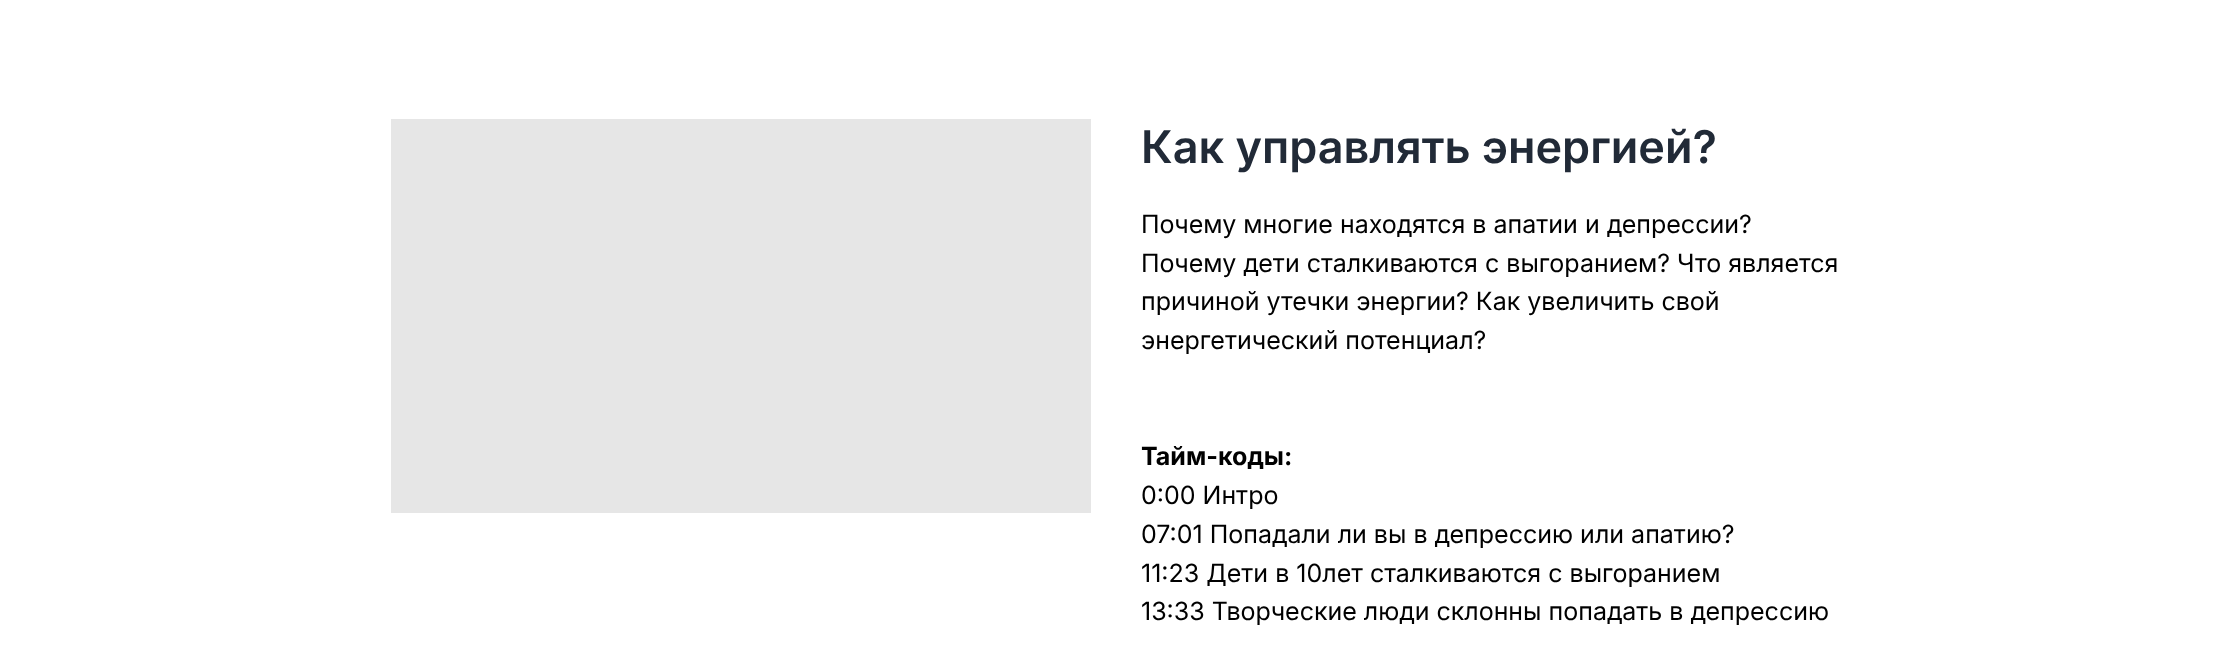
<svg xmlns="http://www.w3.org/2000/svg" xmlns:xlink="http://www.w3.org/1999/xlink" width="2232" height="645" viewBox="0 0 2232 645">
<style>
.cls-1{font:600 45px Inter;fill:#212a37}
.cls-2{font:25px Inter;fill:#000000}
.cls-3{font:bold 25px Inter;fill:#000000}
</style>
<rect width="100%" height="100%" fill="#ffffff"/>
<rect fill="#e6e6e6" x="391" y="119" width="700" height="394"/>
<text class="cls-1" x="1141" y="163">Как управлять энергией?</text>
<text class="cls-2"><tspan x="1141" y="233">Почему многие находятся в апатии и депрессии?</tspan><tspan x="1141" y="272">Почему дети сталкиваются с выгоранием? Что является</tspan><tspan x="1141" y="310">причиной утечки энергии? Как увеличить свой</tspan><tspan x="1141" y="349">энергетический потенциал?</tspan></text>
<text class="cls-3" x="1141" y="465">Тайм-коды:</text>
<text class="cls-2"><tspan x="1141" y="504">0:00 Интро</tspan><tspan x="1141" y="543">07:01 Попадали ли вы в депрессию или апатию?</tspan><tspan x="1141" y="582">11:23 Дети в 10лет сталкиваются с выгоранием</tspan><tspan x="1141" y="620">13:33 Творческие люди склонны попадать в депрессию</tspan></text>
</svg>
